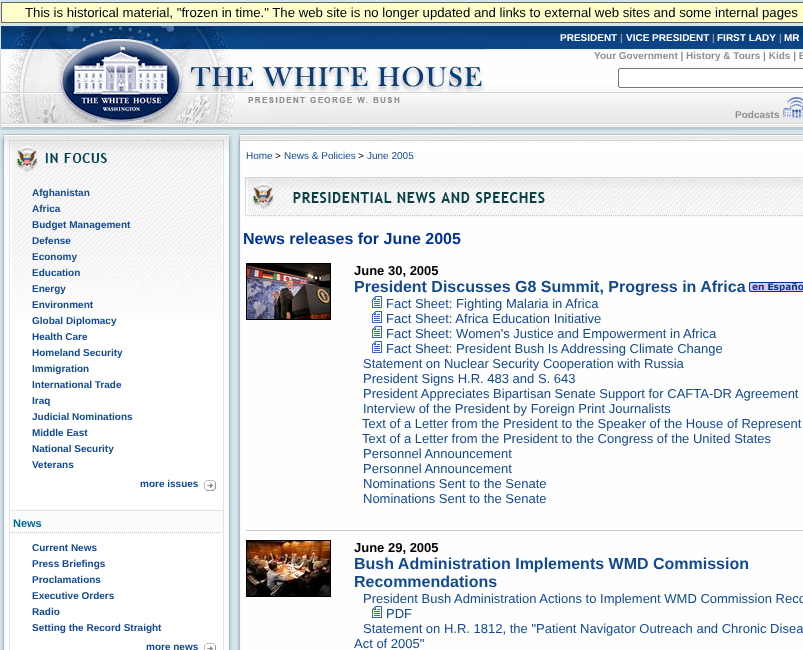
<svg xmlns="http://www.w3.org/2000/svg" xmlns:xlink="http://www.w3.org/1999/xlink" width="803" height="650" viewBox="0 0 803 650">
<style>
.cls-1{font:13.2px Liberation Sans;fill:#000000}
.cls-2{font:bold 10px Liberation Sans;fill:#ffffff}
.cls-3{font:bold 10px Liberation Sans;fill:#919090}
.cls-4{font:bold 10px Liberation Sans;fill:#134992}
.cls-5{font:bold 11px Liberation Sans;fill:#006699}
.cls-6{font:10px Liberation Sans;fill:#134992}
.cls-7{font:10px Liberation Sans;fill:#000000}
.cls-8{font:bold 16px Liberation Sans;fill:#003399}
.cls-9{font:bold 13px Liberation Sans;fill:#000000}
.cls-10{font:bold 16px Liberation Sans;fill:#134992}
.cls-11{font:13px Liberation Sans;fill:#134992}
</style>
<rect width="100%" height="100%" fill="#d5e5eb"/>
<rect fill="#ffffcc" stroke="#666666" x="1.5" y="2.5" width="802" height="20"/>
<image xlink:href="image0.png" x="485" y="26" width="318" height="104"/>
<image xlink:href="image1.png" x="0" y="26" width="485" height="104"/>
<rect fill="#ffffff" stroke="#767676" x="618.5" y="68.5" width="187" height="19" rx="1.5"/>
<image xlink:href="image2.png" x="783" y="96" width="20" height="22"/>
<image xlink:href="image3.png" x="1" y="130" width="802" height="520"/>
<image xlink:href="image4.png" x="237" y="130" width="566" height="20"/>
<image xlink:href="image5.png" x="2" y="180" width="229" height="470"/>
<image xlink:href="image6.png" x="0" y="130" width="233" height="50"/>
<image xlink:href="image7.png" x="10" y="176" width="212" height="144"/>
<image xlink:href="image8.png" x="204" y="480" width="12" height="11"/>
<rect fill="#fafcfc" x="11" y="509" width="212" height="26"/>
<image xlink:href="image9.png" x="12" y="510" width="211" height="1"/>
<image xlink:href="image10.png" x="10" y="532" width="211" height="1"/>
<image xlink:href="image11.png" x="204" y="643" width="12" height="7"/>
<image xlink:href="image12.png" x="245" y="177" width="558" height="40"/>
<image xlink:href="image13.png" x="246" y="263" width="85" height="57"/>
<image xlink:href="image14.png" x="749" y="282" width="54" height="10"/>
<image xlink:href="image15.png" x="372" y="296" width="10" height="12"/>
<image xlink:href="image15.png" x="372" y="311" width="10" height="12"/>
<image xlink:href="image15.png" x="372" y="326" width="10" height="12"/>
<image xlink:href="image15.png" x="372" y="341" width="10" height="12"/>
<rect fill="#cccccc" x="246" y="530" width="557" height="1"/>
<image xlink:href="image16.png" x="246" y="540" width="85" height="57"/>
<image xlink:href="image15.png" x="372" y="606" width="10" height="12"/>
<text class="cls-1" x="25" y="17">This is historical material, "frozen in time." The web site is no longer updated and links to external web sites and some internal pages</text>
<text class="cls-2" x="560" y="41">PRESIDENT</text>
<text class="cls-3" x="620" y="41">|</text>
<text class="cls-2" x="626" y="41">VICE PRESIDENT</text>
<text class="cls-3" x="712" y="41">|</text>
<text class="cls-2" x="717" y="41">FIRST LADY</text>
<text class="cls-3" x="779" y="41">|</text>
<text class="cls-2" x="784" y="41">MR</text>
<text class="cls-3" x="594" y="59">Your Government | History &amp; Tours | Kids | E</text>
<text class="cls-3" x="735" y="118">Podcasts</text>
<text class="cls-4"><tspan x="32" y="196">Afghanistan</tspan><tspan x="32" y="212">Africa</tspan><tspan x="32" y="228">Budget Management</tspan><tspan x="32" y="244">Defense</tspan><tspan x="32" y="260">Economy</tspan><tspan x="32" y="276">Education</tspan><tspan x="32" y="292">Energy</tspan><tspan x="32" y="308">Environment</tspan><tspan x="32" y="324">Global Diplomacy</tspan><tspan x="32" y="340">Health Care</tspan><tspan x="32" y="356">Homeland Security</tspan><tspan x="32" y="372">Immigration</tspan><tspan x="32" y="388">International Trade</tspan><tspan x="32" y="404">Iraq</tspan><tspan x="32" y="420">Judicial Nominations</tspan><tspan x="32" y="436">Middle East</tspan><tspan x="32" y="452">National Security</tspan><tspan x="32" y="468">Veterans</tspan></text>
<text class="cls-4" x="140" y="487">more issues</text>
<text class="cls-5" x="13" y="527">News</text>
<text class="cls-4"><tspan x="32" y="551">Current News</tspan><tspan x="32" y="567">Press Briefings</tspan><tspan x="32" y="583">Proclamations</tspan><tspan x="32" y="599">Executive Orders</tspan><tspan x="32" y="615">Radio</tspan><tspan x="32" y="631">Setting the Record Straight</tspan></text>
<text class="cls-4" x="146" y="650">more news</text>
<text class="cls-6" x="246" y="159">Home</text>
<text class="cls-7" x="275" y="159">&gt;</text>
<text class="cls-6" x="284" y="159">News &amp; Policies</text>
<text class="cls-7" x="358" y="159">&gt;</text>
<text class="cls-6" x="367" y="159">June 2005</text>
<text class="cls-8" x="243" y="244">News releases for June 2005</text>
<text class="cls-9" x="354" y="275">June 30, 2005</text>
<text class="cls-10" x="354" y="292">President Discusses G8 Summit, Progress in Africa</text>
<text class="cls-11"><tspan x="386" y="308">Fact Sheet: Fighting Malaria in Africa</tspan><tspan x="386" y="323">Fact Sheet: Africa Education Initiative</tspan><tspan x="386" y="338">Fact Sheet: Women's Justice and Empowerment in Africa</tspan><tspan x="386" y="353">Fact Sheet: President Bush Is Addressing Climate Change</tspan></text>
<text class="cls-11"><tspan x="363" y="368">Statement on Nuclear Security Cooperation with Russia</tspan><tspan x="363" y="383">President Signs H.R. 483 and S. 643</tspan><tspan x="363" y="398">President Appreciates Bipartisan Senate Support for CAFTA-DR Agreement</tspan><tspan x="363" y="413">Interview of the President by Foreign Print Journalists</tspan></text>
<text class="cls-11"><tspan x="362" y="428">Text of a Letter from the President to the Speaker of the House of Represent</tspan><tspan x="362" y="443">Text of a Letter from the President to the Congress of the United States</tspan></text>
<text class="cls-11"><tspan x="363" y="458">Personnel Announcement</tspan><tspan x="363" y="473">Personnel Announcement</tspan><tspan x="363" y="488">Nominations Sent to the Senate</tspan><tspan x="363" y="503">Nominations Sent to the Senate</tspan></text>
<text class="cls-9" x="354" y="552">June 29, 2005</text>
<text class="cls-10"><tspan x="354" y="569">Bush Administration Implements WMD Commission</tspan><tspan x="354" y="587">Recommendations</tspan></text>
<text class="cls-11" x="363" y="603">President Bush Administration Actions to Implement WMD Commission Reco</text>
<text class="cls-11" x="386" y="618">PDF</text>
<text class="cls-11" x="363" y="633">Statement on H.R. 1812, the "Patient Navigator Outreach and Chronic Disea</text>
<text class="cls-11" x="354" y="648">Act of 2005"</text>
</svg>
